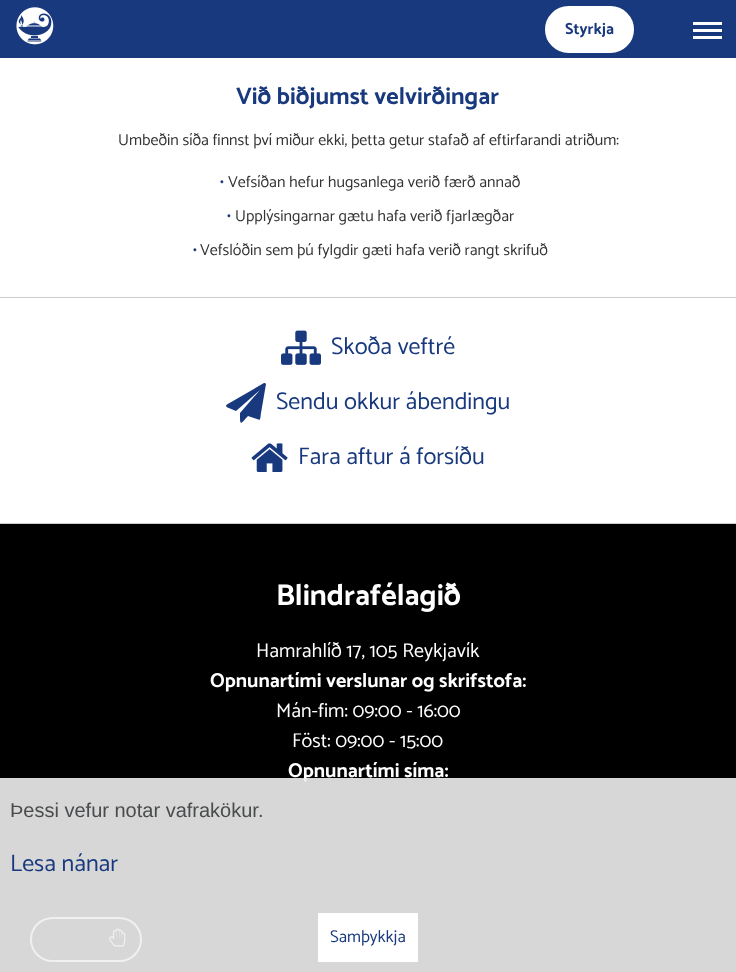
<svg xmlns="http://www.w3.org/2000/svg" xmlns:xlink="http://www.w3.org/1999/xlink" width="736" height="972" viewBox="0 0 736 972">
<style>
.cls-1{font:bold 16px Catamaran;fill:#18397e}
.cls-2{font:bold 24px Catamaran;fill:#18397e}
.cls-3{font:16px Catamaran;fill:#333333}
.cls-4{font:16px Catamaran;fill:#18397e}
.cls-5{font:24px Catamaran;fill:#18397e}
.cls-6{font:bold 30px Catamaran;fill:#ffffff}
.cls-7{font:20px Catamaran;fill:#ffffff}
.cls-8{font:bold 20px Catamaran;fill:#ffffff}
.cls-9{font:20px Liberation Sans;fill:#494b4d}
.cls-10{font:17px Catamaran;fill:#18397e}
</style>
<rect width="100%" height="100%" fill="#ffffff"/>
<rect fill="#18397e" x="0" y="0" width="736" height="58"/>
<image xlink:href="image0.png" x="16" y="7" width="38" height="38"/>
<rect fill="#ffffff" stroke="#18397e" stroke-width="2" x="544" y="5" width="91" height="49" rx="24.5"/>
<rect fill="#ffffff" x="693" y="22" width="29" height="3"/>
<rect fill="#ffffff" x="693" y="29" width="29" height="3"/>
<rect fill="#ffffff" x="693" y="36" width="29" height="3"/>
<rect fill="#cccccc" x="0" y="297" width="736" height="1"/>
<rect fill="#cccccc" x="0" y="523" width="736" height="1"/>
<image xlink:href="image1.png" x="281" y="330" width="40" height="35"/>
<path fill="#18397e" d="M265 383L266 384L261 413C260 419 261 421 257 419L248 416C240 425 240 426 240 413L260 390L236 411C225 406 222 407 233 401L264 383Z"/>
<image xlink:href="image2.png" x="251" y="443" width="37" height="29"/>
<rect fill="#000000" x="0" y="524" width="736" height="448"/>
<rect fill="none" stroke="#ffffff" stroke-width="2" x="31" y="918" width="110" height="43" rx="21.5"/>
<image xlink:href="image3.png" x="109" y="928" width="17" height="19"/>
<text class="cls-1" x="565" y="34">Styrkja</text>
<text class="cls-2" x="236" y="104">Við biðjumst velvirðingar</text>
<text class="cls-3" x="118" y="145">Umbeðin síða finnst því miður ekki, þetta getur stafað af eftirfarandi atriðum:</text>
<text class="cls-4" x="220" y="187">•</text>
<text class="cls-3" x="228" y="187">Vefsíðan hefur hugsanlega verið færð annað</text>
<text class="cls-4" x="227" y="221">•</text>
<text class="cls-3" x="235" y="221">Upplýsingarnar gætu hafa verið fjarlægðar</text>
<text class="cls-4" x="193" y="255">•</text>
<text class="cls-3" x="200" y="255">Vefslóðin sem þú fylgdir gæti hafa verið rangt skrifuð</text>
<text class="cls-5" x="331" y="354">Skoða veftré</text>
<text class="cls-5" x="276" y="409">Sendu okkur ábendingu</text>
<text class="cls-5" x="298" y="464">Fara aftur á forsíðu</text>
<text class="cls-6" x="276" y="605">Blindrafélagið</text>
<text class="cls-7" x="256" y="657">Hamrahlíð 17, 105 Reykjavík</text>
<text class="cls-8" x="210" y="687">Opnunartími verslunar og skrifstofa:</text>
<text class="cls-7" x="276" y="717">Mán-fim: 09:00 - 16:00</text>
<text class="cls-7" x="292" y="747">Föst: 09:00 - 15:00</text>
<text class="cls-8" x="288" y="777">Opnunartími síma:</text>
<rect fill="#eeeeee" fill-opacity="0.9" x="0" y="778" width="736" height="194"/>
<text class="cls-9" x="10" y="817">Þessi vefur notar vafrakökur.</text>
<text class="cls-5" x="10" y="871">Lesa nánar</text>
<rect fill="#ffffff" x="318" y="913" width="100" height="49"/>
<text class="cls-10" x="330" y="942">Samþykkja</text>
</svg>
